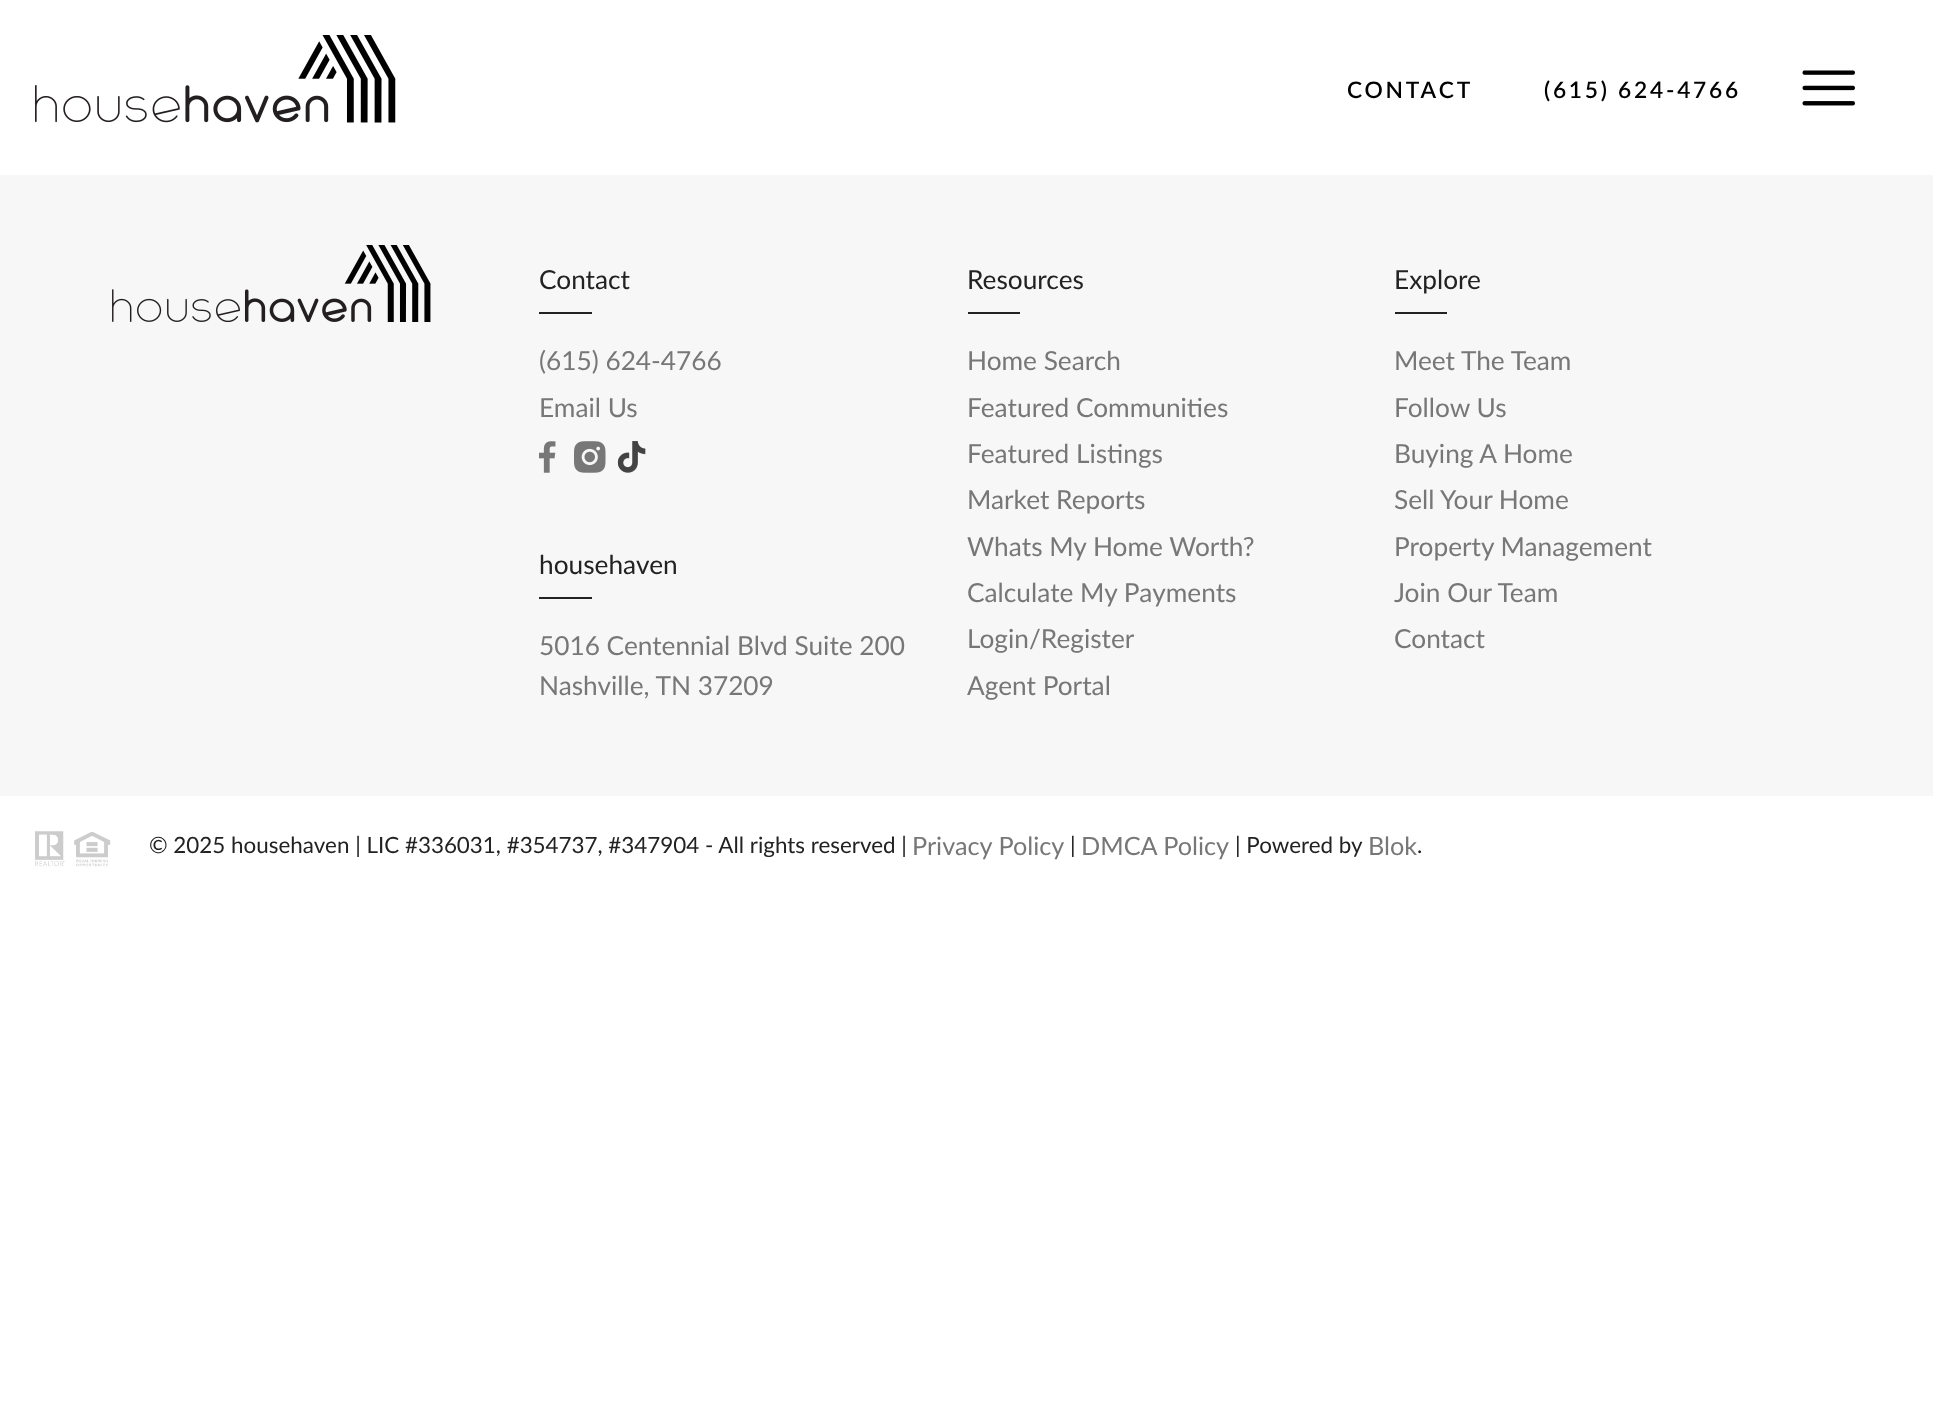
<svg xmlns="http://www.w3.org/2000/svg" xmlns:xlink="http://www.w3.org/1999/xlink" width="1933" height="1426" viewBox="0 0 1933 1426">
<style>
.cls-1{font:600 22.75px Lato;letter-spacing:2.75px;fill:#000000}
.cls-2{font:26.25px Lato;fill:#222222}
.cls-3{font:26.25px Lato;fill:#777777}
.cls-4{font:22.4px Lato;fill:#222222}
.cls-5{font:25.25px Lato;fill:#777777}
</style>
<rect width="100%" height="100%" fill="#ffffff"/>
<image xlink:href="image0.png" x="35" y="35" width="361" height="88"/>
<image xlink:href="image1.png" x="1802" y="70" width="53" height="36"/>
<rect fill="#f7f7f7" x="0" y="175" width="1933" height="621"/>
<image xlink:href="image2.png" x="112" y="245" width="319" height="77"/>
<rect fill="#222222" x="539" y="312" width="53" height="2"/>
<image xlink:href="image3.png" x="539" y="441" width="17" height="32"/>
<image xlink:href="image4.png" x="574" y="441" width="32" height="32"/>
<image xlink:href="image5.png" x="618" y="441" width="28" height="32"/>
<image xlink:href="image6.png" x="617" y="441" width="29" height="32"/>
<rect fill="#222222" x="539" y="597" width="53" height="2"/>
<rect fill="#222222" x="968" y="312" width="52" height="2"/>
<rect fill="#222222" x="1395" y="312" width="52" height="2"/>
<image xlink:href="image7.png" x="35" y="831" width="76" height="36"/>
<text class="cls-1" x="1347" y="98">CONTACT</text>
<text class="cls-1" x="1544" y="98">(615) 624-4766</text>
<text class="cls-2" x="539" y="289">Contact</text>
<text class="cls-3"><tspan x="539" y="370">(615) 624-4766</tspan><tspan x="539" y="417">Email Us</tspan></text>
<text class="cls-2" x="539" y="574">househaven</text>
<text class="cls-3"><tspan x="539" y="655">5016 Centennial Blvd Suite 200</tspan><tspan x="539" y="695">Nashville, TN 37209</tspan></text>
<text class="cls-2" x="967" y="289">Resources</text>
<text class="cls-3"><tspan x="967" y="370">Home Search</tspan><tspan x="967" y="417">Featured Communities</tspan><tspan x="967" y="463">Featured Listings</tspan><tspan x="967" y="509">Market Reports</tspan><tspan x="967" y="556">Whats My Home Worth?</tspan><tspan x="967" y="602">Calculate My Payments</tspan><tspan x="967" y="648">Login/Register</tspan><tspan x="967" y="695">Agent Portal</tspan></text>
<text class="cls-2" x="1394" y="289">Explore</text>
<text class="cls-3"><tspan x="1394" y="370">Meet The Team</tspan><tspan x="1394" y="417">Follow Us</tspan><tspan x="1394" y="463">Buying A Home</tspan><tspan x="1394" y="509">Sell Your Home</tspan><tspan x="1394" y="556">Property Management</tspan><tspan x="1394" y="602">Join Our Team</tspan><tspan x="1394" y="648">Contact</tspan></text>
<text class="cls-4" x="149" y="853">© 2025 househaven | LIC #336031, #354737, #347904 - All rights reserved |</text>
<text class="cls-5" x="912" y="855">Privacy Policy</text>
<text class="cls-4" x="1070" y="853">|</text>
<text class="cls-5" x="1081" y="855">DMCA Policy</text>
<text class="cls-4" x="1235" y="853">| Powered by</text>
<text class="cls-5" x="1368" y="855">Blok</text>
<text class="cls-4" x="1417" y="853">.</text>
</svg>
